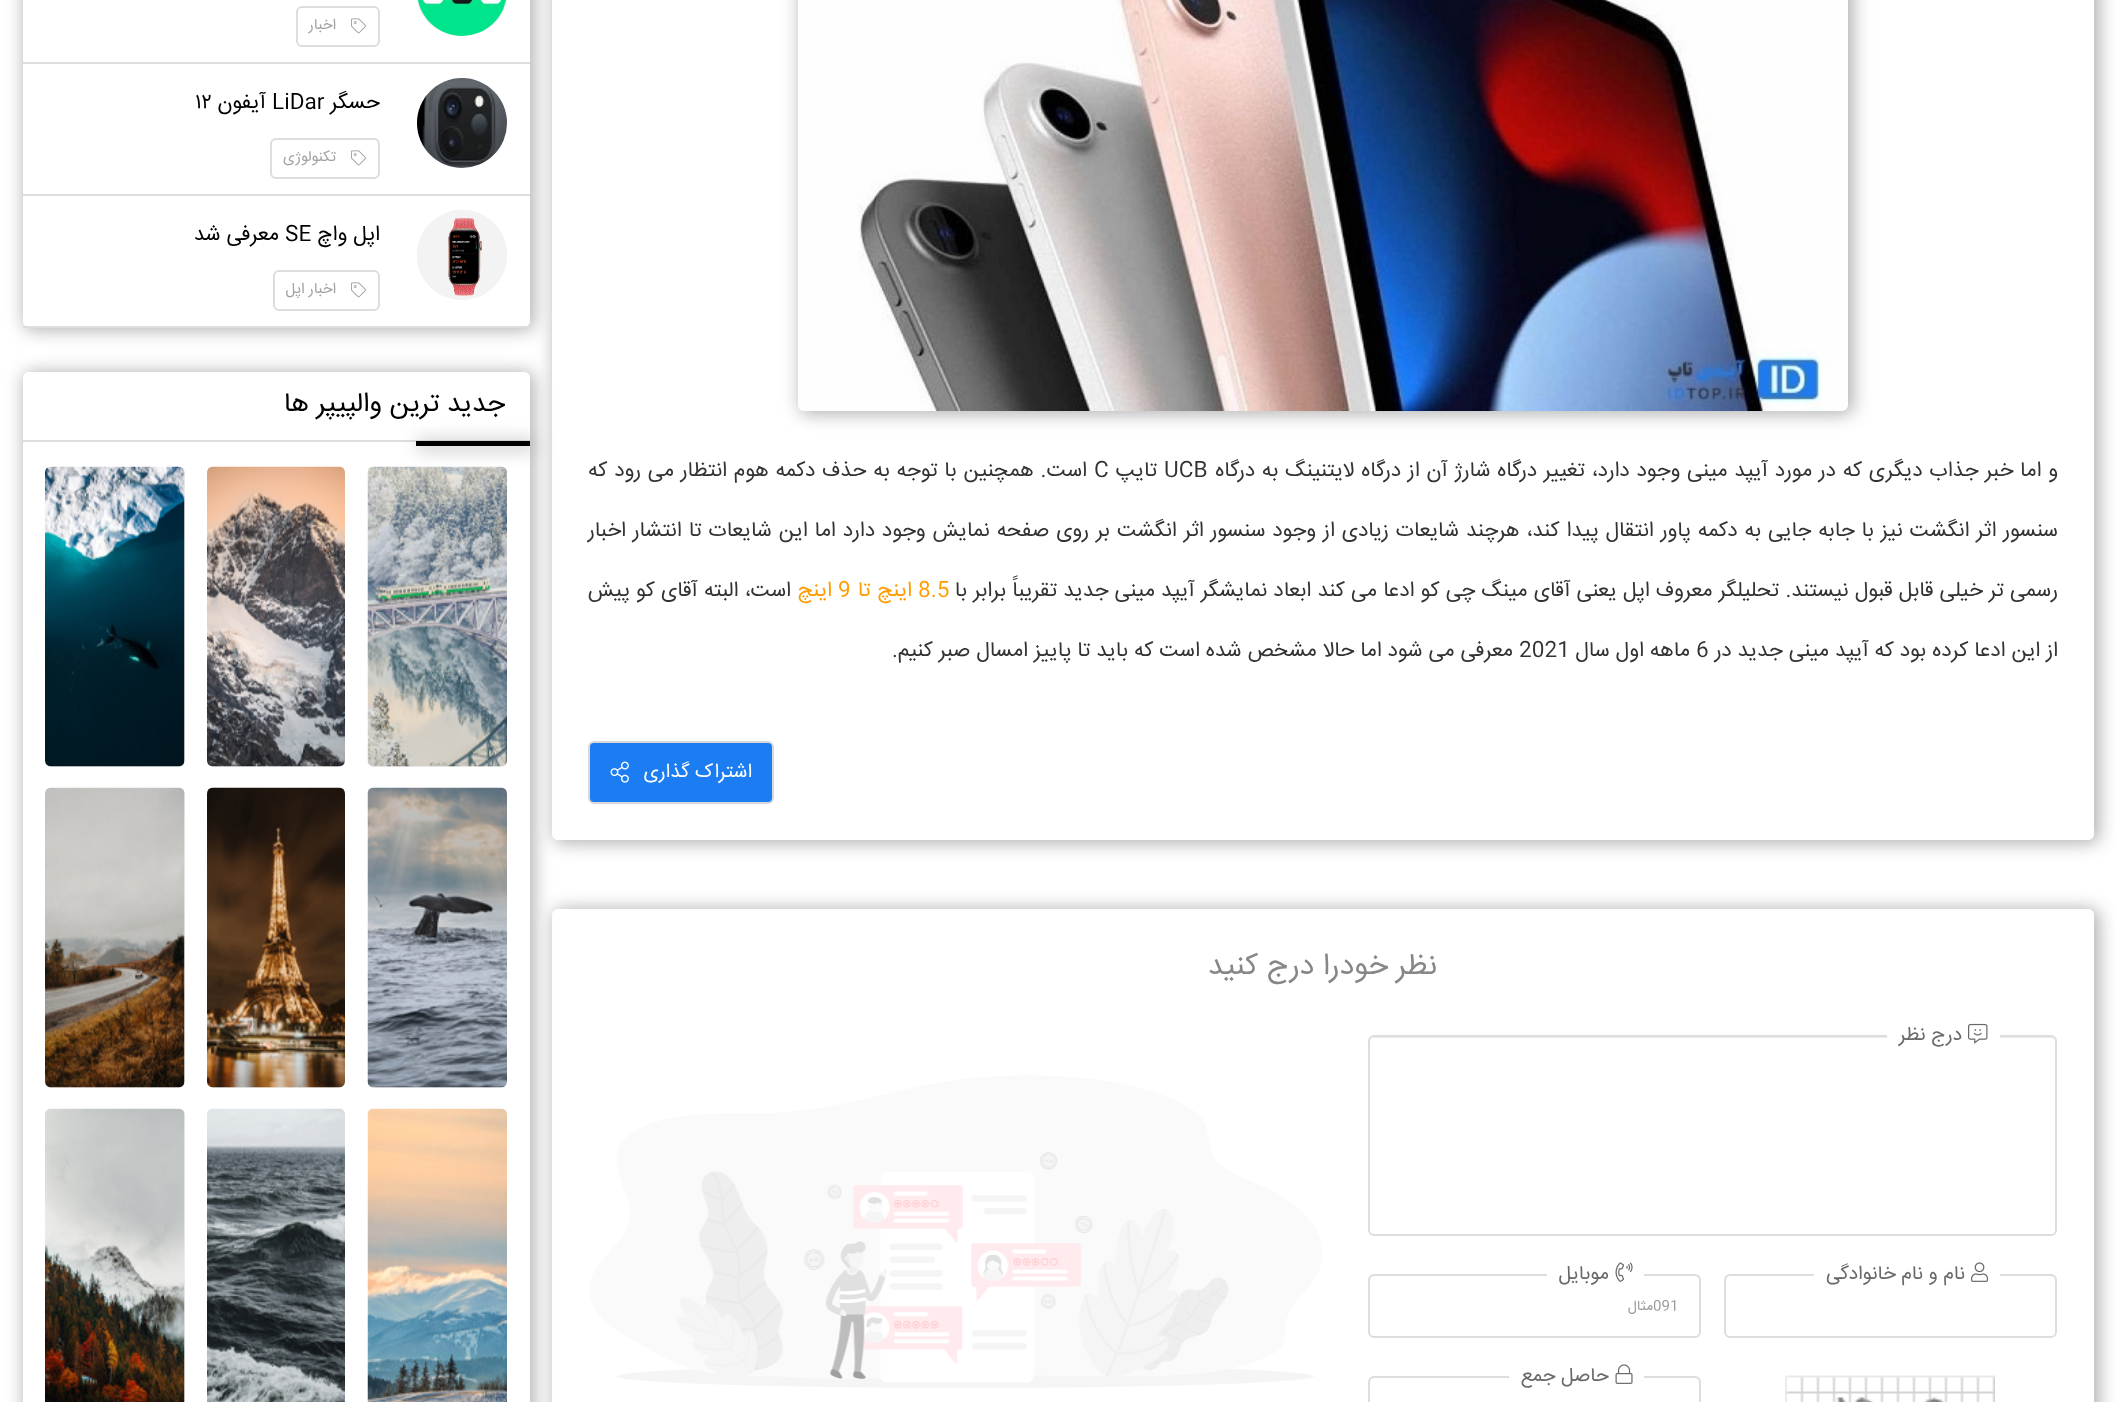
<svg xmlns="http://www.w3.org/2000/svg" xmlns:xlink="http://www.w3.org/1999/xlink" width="2116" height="1402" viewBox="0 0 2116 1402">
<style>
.cls-1{font:15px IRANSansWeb;direction:rtl;fill:#a2a2a2}
.cls-2{font:21px IRANSansWeb;direction:rtl;fill:#000000}
.cls-3{font:21px IRANSansWeb;fill:#000000}
.cls-4{font:27px IRANSansWeb;direction:rtl;fill:#000000}
.cls-5{font:21px IRANSansWeb;direction:rtl;fill:#333333}
.cls-6{font:21px IRANSansWeb;fill:#333333}
.cls-7{font:21px IRANSansWeb;fill:#ff9c00}
.cls-8{font:21px IRANSansWeb;direction:rtl;fill:#ff9c00}
.cls-9{font:19.5px IRANSansWeb;direction:rtl;fill:#ffffff}
.cls-10{font:30px IRANSansWeb;direction:rtl;fill:#878787}
.cls-11{font:19.5px IRANSansWeb;direction:rtl;fill:#696969}
.cls-12{font:14px IRANSansWeb;fill:#999999}
.cls-13{font:14px IRANSansWeb;direction:rtl;fill:#999999}
</style>
<defs>
<clipPath id="clip1"><path d="M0 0H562V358H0ZM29-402H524C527.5-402 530-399.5 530-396V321C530 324.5 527.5 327 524 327H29C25.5 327 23 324.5 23 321V-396C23-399.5 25.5-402 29-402Z" clip-rule="evenodd"/></clipPath>
<clipPath id="clip2"><path d="M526 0H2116V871H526ZM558-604H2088C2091.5-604 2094-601.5 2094-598V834C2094 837.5 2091.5 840 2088 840H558C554.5 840 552 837.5 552 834V-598C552-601.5 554.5-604 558-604Z" clip-rule="evenodd"/></clipPath>
<linearGradient id="g1" gradientUnits="userSpaceOnUse" x1="-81" y1="24" x2="1119" y2="24"><stop offset="0.08" stop-color="#eeeeee"/><stop offset="0.18" stop-color="#dddddd"/><stop offset="0.33" stop-color="#eeeeee"/></linearGradient>
<linearGradient id="g2" gradientUnits="userSpaceOnUse" x1="-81" y1="156" x2="1119" y2="156"><stop offset="0.08" stop-color="#eeeeee"/><stop offset="0.18" stop-color="#dddddd"/><stop offset="0.33" stop-color="#eeeeee"/></linearGradient>
<linearGradient id="g3" gradientUnits="userSpaceOnUse" x1="-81" y1="288" x2="1119" y2="288"><stop offset="0.08" stop-color="#eeeeee"/><stop offset="0.18" stop-color="#dddddd"/><stop offset="0.33" stop-color="#eeeeee"/></linearGradient>
<clipPath id="clip3"><path d="M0 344H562V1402H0ZM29 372H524C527.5 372 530 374.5 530 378V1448C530 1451.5 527.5 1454 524 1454H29C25.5 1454 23 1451.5 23 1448V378C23 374.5 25.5 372 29 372Z" clip-rule="evenodd"/></clipPath>
<linearGradient id="g4" gradientUnits="userSpaceOnUse" x1="-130" y1="545" x2="1070" y2="545"><stop offset="0.08" stop-color="#eeeeee"/><stop offset="0.18" stop-color="#dddddd"/><stop offset="0.33" stop-color="#eeeeee"/></linearGradient>
<linearGradient id="g5" gradientUnits="userSpaceOnUse" x1="-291" y1="545" x2="909" y2="545"><stop offset="0.08" stop-color="#eeeeee"/><stop offset="0.18" stop-color="#dddddd"/><stop offset="0.33" stop-color="#eeeeee"/></linearGradient>
<linearGradient id="g6" gradientUnits="userSpaceOnUse" x1="-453" y1="545" x2="747" y2="545"><stop offset="0.08" stop-color="#eeeeee"/><stop offset="0.18" stop-color="#dddddd"/><stop offset="0.33" stop-color="#eeeeee"/></linearGradient>
<linearGradient id="g7" gradientUnits="userSpaceOnUse" x1="-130" y1="866" x2="1070" y2="866"><stop offset="0.08" stop-color="#eeeeee"/><stop offset="0.18" stop-color="#dddddd"/><stop offset="0.33" stop-color="#eeeeee"/></linearGradient>
<linearGradient id="g8" gradientUnits="userSpaceOnUse" x1="-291" y1="866" x2="909" y2="866"><stop offset="0.08" stop-color="#eeeeee"/><stop offset="0.18" stop-color="#dddddd"/><stop offset="0.33" stop-color="#eeeeee"/></linearGradient>
<linearGradient id="g9" gradientUnits="userSpaceOnUse" x1="-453" y1="866" x2="747" y2="866"><stop offset="0.08" stop-color="#eeeeee"/><stop offset="0.18" stop-color="#dddddd"/><stop offset="0.33" stop-color="#eeeeee"/></linearGradient>
<linearGradient id="g10" gradientUnits="userSpaceOnUse" x1="-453" y1="1187" x2="747" y2="1187"><stop offset="0.08" stop-color="#eeeeee"/><stop offset="0.18" stop-color="#dddddd"/><stop offset="0.33" stop-color="#eeeeee"/></linearGradient>
</defs>
<rect width="100%" height="100%" fill="#ffffff"/>
<g clip-path="url(#clip1)">
<rect fill="#afafaf" filter="blur(9px)" x="24" y="-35" width="510" height="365" rx="8"/>
</g>
<g clip-path="url(#clip2)">
<rect fill="#afafaf" filter="blur(9px)" x="554" y="-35" width="1545" height="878" rx="8"/>
</g>
<rect fill="#dddddd" x="23" y="62" width="507" height="2"/>
<rect fill="url(#g1)" x="417" y="-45" width="90" height="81" rx="45"/>
<image xlink:href="image0.png" x="417" y="0" width="90" height="36"/>
<rect fill="none" stroke="#dddddd" stroke-width="2" x="297" y="7" width="82" height="39" rx="5"/>
<image xlink:href="image1.png" x="351" y="18" width="15" height="16"/>
<rect fill="#dddddd" x="23" y="194" width="507" height="2"/>
<circle fill="url(#g2)" cx="462" cy="123" r="45"/>
<image xlink:href="image2.png" x="417" y="78" width="90" height="90"/>
<rect fill="none" stroke="#dddddd" stroke-width="2" x="271" y="139" width="108" height="39" rx="5"/>
<image xlink:href="image1.png" x="351" y="150" width="15" height="16"/>
<rect fill="#dddddd" x="23" y="326" width="507" height="2"/>
<circle fill="url(#g3)" cx="462" cy="255" r="45"/>
<image xlink:href="image3.png" x="417" y="210" width="90" height="90"/>
<rect fill="none" stroke="#dddddd" stroke-width="2" x="274" y="271" width="105" height="39" rx="5"/>
<image xlink:href="image1.png" x="351" y="282" width="15" height="16"/>
<rect fill="#afafaf" filter="blur(9px)" x="554" y="909" width="1545" height="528" rx="8"/>
<rect fill="#ffffff" x="552" y="909" width="1542" height="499" rx="6"/>
<g clip-path="url(#clip3)">
<rect fill="#afafaf" filter="blur(9px)" x="24" y="372" width="510" height="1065" rx="8"/>
</g>
<rect fill="#dddddd" x="23" y="440" width="507" height="2"/>
<rect fill="#afafaf" filter="blur(9px)" x="417" y="441" width="117" height="8"/>
<rect fill="#000000" x="416" y="441" width="114" height="5"/>
<rect fill="url(#g4)" x="368" y="467" width="139" height="300" rx="6"/>
<image xlink:href="image4.png" x="367" y="466" width="140" height="301"/>
<rect fill="url(#g5)" x="207" y="467" width="138" height="300" rx="6"/>
<image xlink:href="image5.png" x="207" y="466" width="138" height="301"/>
<rect fill="url(#g6)" x="45" y="467" width="140" height="300" rx="6"/>
<image xlink:href="image6.png" x="45" y="466" width="140" height="301"/>
<rect fill="url(#g7)" x="368" y="788" width="139" height="300" rx="6"/>
<image xlink:href="image7.png" x="367" y="787" width="140" height="301"/>
<rect fill="url(#g8)" x="207" y="788" width="138" height="300" rx="6"/>
<image xlink:href="image8.png" x="207" y="787" width="138" height="301"/>
<rect fill="url(#g9)" x="45" y="788" width="140" height="300" rx="6"/>
<image xlink:href="image9.png" x="45" y="787" width="140" height="301"/>
<image xlink:href="image10.png" x="367" y="1108" width="140" height="294"/>
<image xlink:href="image11.png" x="207" y="1108" width="138" height="294"/>
<rect fill="url(#g10)" x="45" y="1109" width="140" height="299" rx="6"/>
<image xlink:href="image12.png" x="45" y="1108" width="140" height="294"/>
<rect fill="#afafaf" filter="blur(9px)" x="800" y="-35" width="1053" height="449" rx="8"/>
<image xlink:href="image13.png" x="798" y="0" width="1050" height="411"/>
<rect fill="#1c7df3" stroke="#d9d9d9" stroke-width="2" x="589" y="742" width="184" height="61" rx="5"/>
<image xlink:href="image14.png" x="610" y="761" width="19" height="22"/>
<path fill="#ececec" d="M1374 1038H2050C2053 1038 2055 1040 2055 1042C2055 1039 2053 1037 2050 1037H1375C1372 1037 1370 1039 1370 1042C1370 1040 1372 1038 1374 1038Z"/>
<rect fill="none" stroke="#dddddd" stroke-width="2" x="1369" y="1036" width="687" height="199" rx="5"/>
<rect fill="#ffffff" x="1887" y="1035" width="113" height="3"/>
<image xlink:href="image15.png" x="1968" y="1023" width="20" height="21"/>
<path fill="#ececec" d="M1730 1276H2050C2053 1276 2055 1279 2055 1281C2055 1278 2053 1275 2050 1275H1730C1727 1275 1725 1278 1725 1281C1725 1279 1727 1276 1730 1276Z"/>
<rect fill="none" stroke="#dddddd" stroke-width="2" x="1725" y="1275" width="331" height="62" rx="5"/>
<rect fill="#ffffff" x="1814" y="1274" width="186" height="2"/>
<image xlink:href="image16.png" x="1971" y="1262" width="18" height="20"/>
<path fill="#ececec" d="M1374 1276H1695C1697 1276 1700 1279 1700 1281C1700 1278 1698 1275 1695 1275H1375C1372 1275 1370 1278 1370 1281C1370 1279 1372 1276 1374 1276Z"/>
<rect fill="none" stroke="#dddddd" stroke-width="2" x="1369" y="1275" width="331" height="62" rx="5"/>
<rect fill="#ffffff" x="1547" y="1274" width="97" height="2"/>
<image xlink:href="image17.png" x="1615" y="1262" width="18" height="20"/>
<image xlink:href="image18.png" x="1785" y="1375" width="210" height="27"/>
<path fill="#ececec" d="M1374 1378H1695C1697 1378 1700 1381 1700 1383C1700 1380 1698 1377 1695 1377H1375C1372 1377 1370 1380 1370 1383C1370 1381 1372 1378 1374 1378Z"/>
<rect fill="none" stroke="#dddddd" stroke-width="2" x="1369" y="1377" width="331" height="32" rx="5"/>
<rect fill="#ffffff" x="1509" y="1376" width="135" height="2"/>
<image xlink:href="image19.png" x="1615" y="1364" width="18" height="20"/>
<image xlink:href="image20.png" x="590" y="1075" width="732" height="313"/>
<text class="cls-1" x="336" y="29">اخبار</text>
<text class="cls-2" x="380" y="108">حسگر</text>
<text class="cls-3" x="272" y="108">LiDar</text>
<text class="cls-2" x="266" y="108">آیفون</text>
<text class="cls-3" x="195" y="108">۱۲</text>
<text class="cls-1" x="336" y="161">تکنولوژی</text>
<text class="cls-2" x="380" y="240">اپل واچ</text>
<text class="cls-3" x="285" y="240">SE</text>
<text class="cls-2" x="279" y="240">معرفی شد</text>
<text class="cls-1" x="336" y="293">اخبار اپل</text>
<text class="cls-4" x="505" y="411">جدید ترین والپیپر ها</text>
<text class="cls-5" x="2058" y="476" word-spacing="0.9">و اما خبر جذاب دیگری که در مورد آیپد مینی وجود دارد، تغییر درگاه شارژ آن از درگاه لایتنینگ به درگاه</text>
<text class="cls-6" x="1164" y="476">UCB</text>
<text class="cls-5" x="1157" y="476">تایپ</text>
<text class="cls-6" x="1094" y="476">C</text>
<text class="cls-5" x="1087" y="476" word-spacing="0.9">است. همچنین با توجه به حذف دکمه هوم انتظار می رود که</text>
<text class="cls-5" x="2058" y="536" word-spacing="1">سنسور اثر انگشت نیز با جابه جایی به دکمه پاور انتقال پیدا کند، هرچند شایعات زیادی از وجود سنسور اثر انگشت بر روی صفحه نمایش وجود دارد اما این شایعات تا انتشار اخبار</text>
<text class="cls-5" x="2058" y="596" word-spacing="0.25">رسمی تر خیلی قابل قبول نیستند. تحلیلگر معروف اپل یعنی آقای مینگ چی کو ادعا می کند ابعاد نمایشگر آیپد مینی جدید تقریباً برابر با</text>
<text class="cls-7" x="918" y="596">8.5</text>
<text class="cls-8" x="912" y="596" word-spacing="0.25">اینچ تا</text>
<text class="cls-7" x="838" y="596">9</text>
<text class="cls-8" x="832" y="596">اینچ</text>
<text class="cls-5" x="791" y="596" word-spacing="0.25">است، البته آقای کو پیش</text>
<text class="cls-5" x="2058" y="656">از این ادعا کرده بود که آیپد مینی جدید در</text>
<text class="cls-6" x="1696" y="656">6</text>
<text class="cls-5" x="1690" y="656">ماهه اول سال</text>
<text class="cls-6" x="1519" y="656">2021</text>
<text class="cls-5" x="1513" y="656">معرفی می شود اما حالا مشخص شده است که باید تا پاییز امسال صبر کنیم.</text>
<text class="cls-9" x="752" y="777">اشتراک گذاری</text>
<text class="cls-10" x="1437" y="974">نظر خودرا درج کنید</text>
<text class="cls-11" x="1962" y="1040">درج نظر</text>
<text class="cls-11" x="1965" y="1279">نام و نام خانوادگی</text>
<text class="cls-11" x="1609" y="1279">موبایل</text>
<text class="cls-12" x="1653" y="1310">091</text>
<text class="cls-13" x="1653" y="1310">مثال</text>
<text class="cls-11" x="1609" y="1381">حاصل جمع</text>
</svg>
